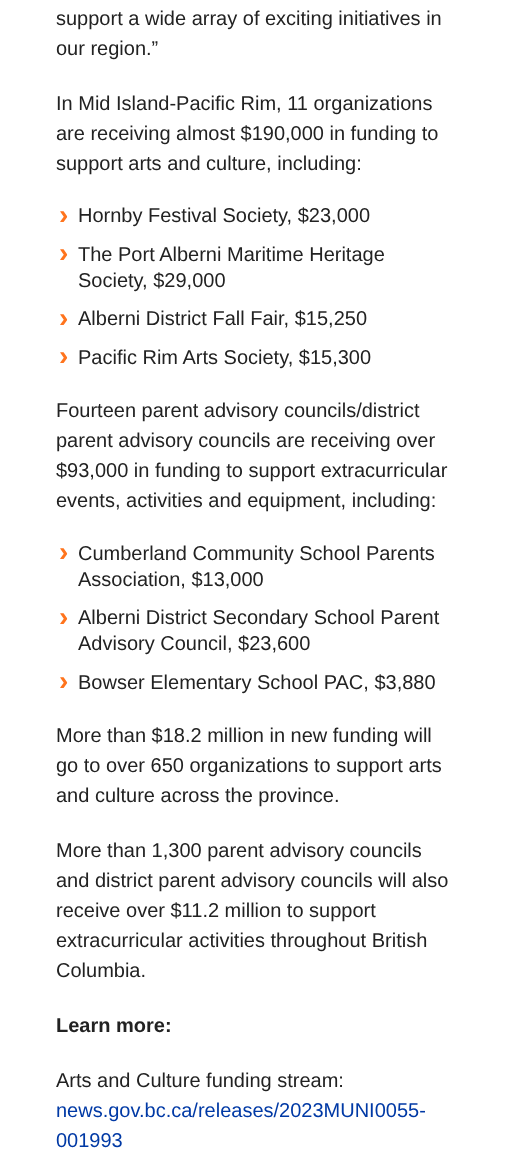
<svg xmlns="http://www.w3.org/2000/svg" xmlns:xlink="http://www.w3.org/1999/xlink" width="511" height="1158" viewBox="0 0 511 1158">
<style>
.cls-1{font:20px Liberation Sans;fill:#222222}
.cls-2{font:bold 28px Liberation Sans;fill:#ff741d}
.cls-3{font:bold 20px Liberation Sans;fill:#222222}
.cls-4{font:20px Liberation Sans;fill:#0039a5}
</style>
<rect width="100%" height="100%" fill="#ffffff"/>
<text class="cls-1"><tspan x="56" y="25">support a wide array of exciting initiatives in</tspan><tspan x="56" y="55">our region.”</tspan></text>
<text class="cls-1"><tspan x="56" y="110">In Mid Island-Pacific Rim, 11 organizations</tspan><tspan x="56" y="140">are receiving almost $190,000 in funding to</tspan><tspan x="56" y="170">support arts and culture, including:</tspan></text>
<text class="cls-2" x="59" y="224">›</text>
<text class="cls-1" x="78" y="222">Hornby Festival Society, $23,000</text>
<text class="cls-2" x="59" y="262">›</text>
<text class="cls-1"><tspan x="78" y="261">The Port Alberni Maritime Heritage</tspan><tspan x="78" y="287">Society, $29,000</tspan></text>
<text class="cls-2" x="59" y="327">›</text>
<text class="cls-1" x="78" y="325">Alberni District Fall Fair, $15,250</text>
<text class="cls-2" x="59" y="365">›</text>
<text class="cls-1" x="78" y="364">Pacific Rim Arts Society, $15,300</text>
<text class="cls-1"><tspan x="56" y="417">Fourteen parent advisory councils/district</tspan><tspan x="56" y="447">parent advisory councils are receiving over</tspan><tspan x="56" y="477">$93,000 in funding to support extracurricular</tspan><tspan x="56" y="507">events, activities and equipment, including:</tspan></text>
<text class="cls-2" x="59" y="561">›</text>
<text class="cls-1"><tspan x="78" y="560">Cumberland Community School Parents</tspan><tspan x="78" y="586">Association, $13,000</tspan></text>
<text class="cls-2" x="59" y="626">›</text>
<text class="cls-1"><tspan x="78" y="624">Alberni District Secondary School Parent</tspan><tspan x="78" y="650">Advisory Council, $23,600</tspan></text>
<text class="cls-2" x="59" y="690">›</text>
<text class="cls-1" x="78" y="689">Bowser Elementary School PAC, $3,880</text>
<text class="cls-1"><tspan x="56" y="742">More than $18.2 million in new funding will</tspan><tspan x="56" y="772">go to over 650 organizations to support arts</tspan><tspan x="56" y="802">and culture across the province.</tspan></text>
<text class="cls-1"><tspan x="56" y="857">More than 1,300 parent advisory councils</tspan><tspan x="56" y="887">and district parent advisory councils will also</tspan><tspan x="56" y="917">receive over $11.2 million to support</tspan><tspan x="56" y="947">extracurricular activities throughout British</tspan><tspan x="56" y="977">Columbia.</tspan></text>
<text class="cls-3" x="56" y="1032">Learn more:</text>
<text class="cls-1" x="56" y="1087">Arts and Culture funding stream:</text>
<text class="cls-4"><tspan x="56" y="1117">news.gov.bc.ca/releases/2023MUNI0055-</tspan><tspan x="56" y="1147">001993</tspan></text>
</svg>
